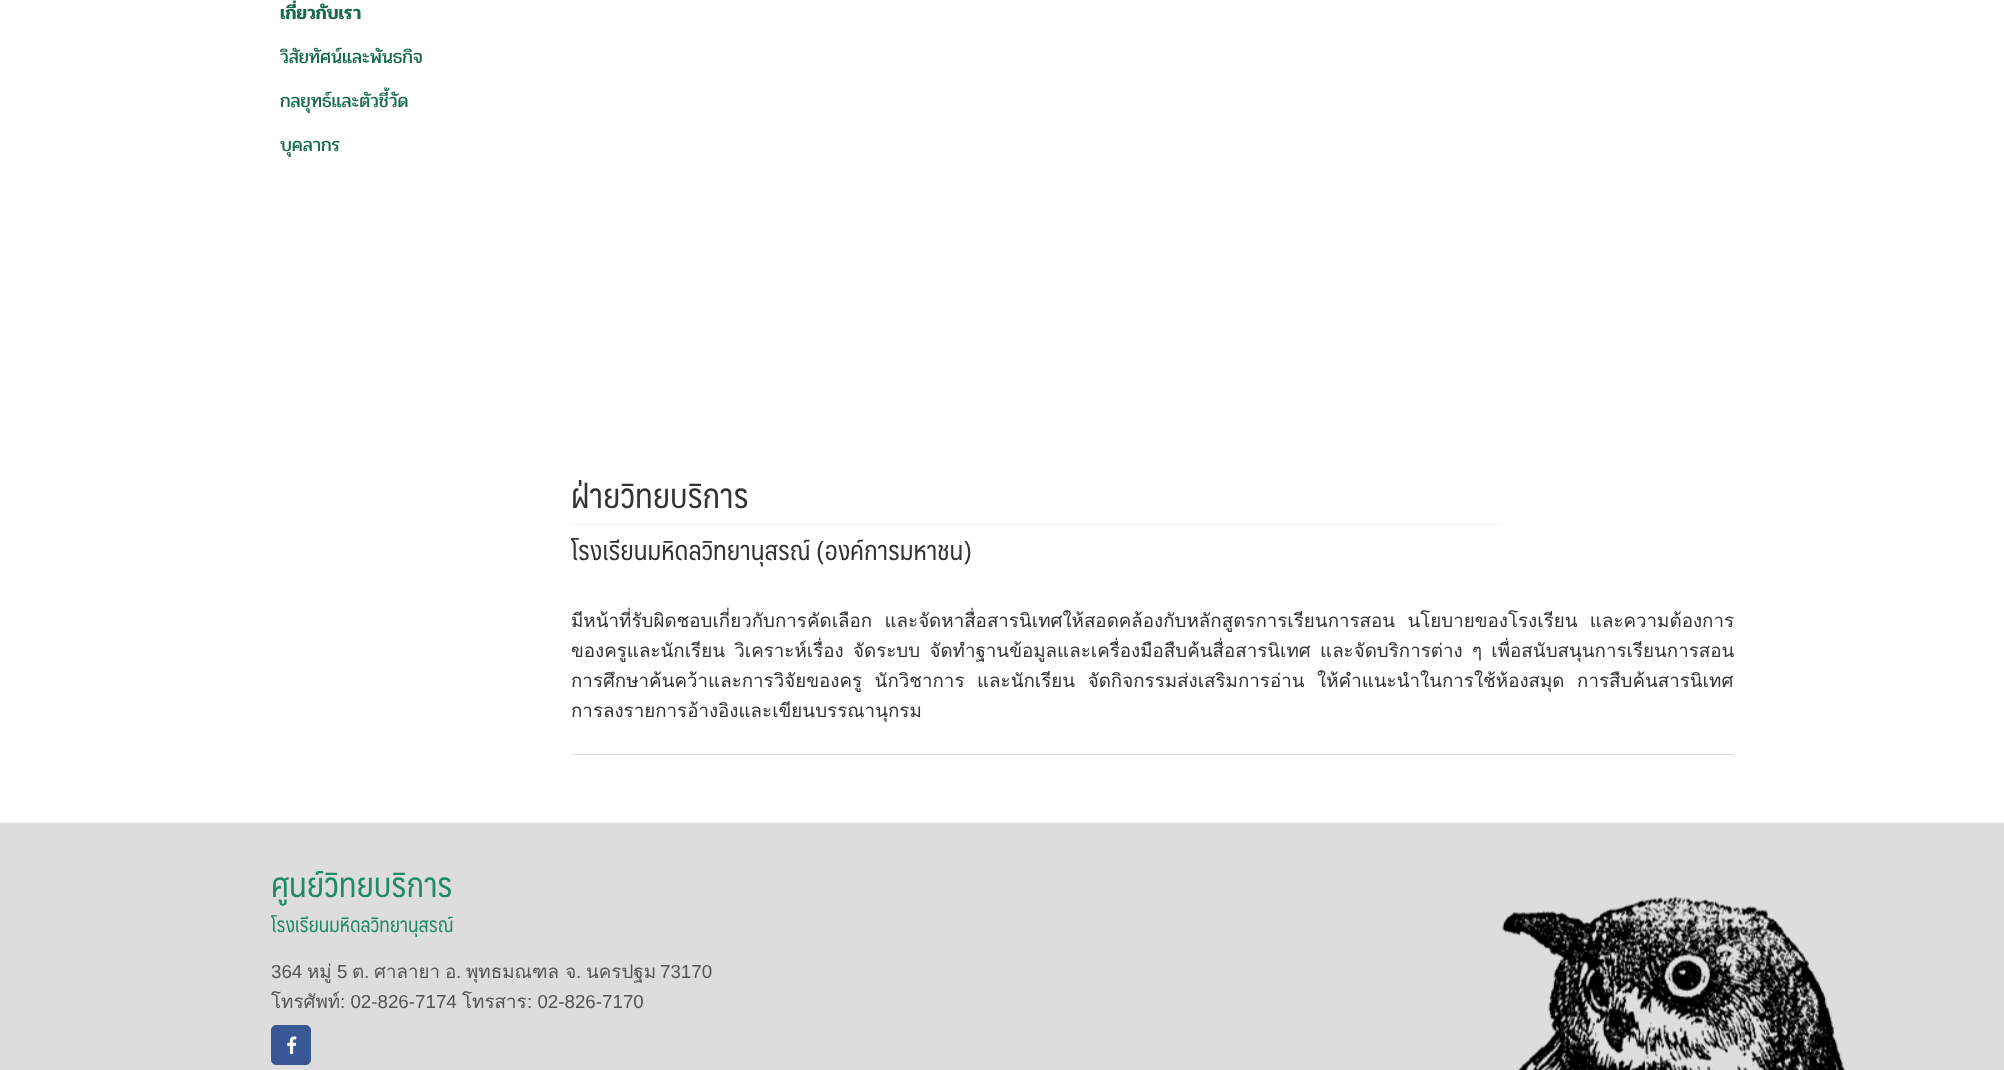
<svg xmlns="http://www.w3.org/2000/svg" xmlns:xlink="http://www.w3.org/1999/xlink" width="2004" height="1070" viewBox="0 0 2004 1070">
<style>
.cls-1{font:600 18.75px Pridi;fill:#176b4c}
.cls-2{font:18.75px Pridi;fill:#176b4c}
.cls-3{font:33.75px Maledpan;fill:#333333}
.cls-4{font:26.25px Maledpan;fill:#333333}
.cls-5{font:18.75px Loma;fill:#333333}
.cls-6{font:33.75px Maledpan;fill:#1e8b63}
.cls-7{font:20px Maledpan;fill:#1e8b63}
.cls-8{font:18.75px Liberation Sans;fill:#555555}
.cls-9{font:18.75px Loma;fill:#555555}
</style>
<rect width="100%" height="100%" fill="#ffffff"/>
<rect fill="#eeeeee" x="571" y="524" width="930" height="1"/>
<rect fill="#dddddd" x="571" y="754" width="1163" height="1"/>
<image xlink:href="image0.png" x="0" y="822" width="2004" height="248"/>
<rect fill="#3a5795" stroke="#3a5795" x="271.5" y="1025.5" width="39" height="39" rx="4.5"/>
<image xlink:href="image1.png" x="287" y="1036" width="10" height="18"/>
<text class="cls-1" x="280" y="19">เกี่ยวกับเรา</text>
<text class="cls-2" x="280" y="63">วิสัยทัศน์และพันธกิจ</text>
<text class="cls-2" x="280" y="107">กลยุทธ์และตัวชี้วัด</text>
<text class="cls-2" x="280" y="151">บุคลากร</text>
<text class="cls-3" x="571" y="508">ฝ่ายวิทยบริการ</text>
<text class="cls-4" x="571" y="560">โรงเรียนมหิดลวิทยานุสรณ์ (องค์การมหาชน)</text>
<text class="cls-5"><tspan x="571" y="627" word-spacing="6">มีหน้าที่รับผิดชอบเกี่ยวกับการคัดเลือก และจัดหาสื่อสารนิเทศให้สอดคล้องกับหลักสูตรการเรียนการสอน นโยบายของโรงเรียน และความต้องการ</tspan><tspan x="571" y="657" word-spacing="3">ของครูและนักเรียน วิเคราะห์เรื่อง จัดระบบ จัดทำฐานข้อมูลและเครื่องมือสืบค้นสื่อสารนิเทศ และจัดบริการต่าง ๆ เพื่อสนับสนุนการเรียนการสอน</tspan><tspan x="571" y="687" word-spacing="6.25">การศึกษาค้นคว้าและการวิจัยของครู นักวิชาการ และนักเรียน จัดกิจกรรมส่งเสริมการอ่าน ให้คำแนะนำในการใช้ห้องสมุด การสืบค้นสารนิเทศ</tspan><tspan x="571" y="717">การลงรายการอ้างอิงและเขียนบรรณานุกรม</tspan></text>
<text class="cls-6" x="271" y="897">ศูนย์วิทยบริการ</text>
<text class="cls-7" x="271" y="932">โรงเรียนมหิดลวิทยานุสรณ์</text>
<text class="cls-8" x="271" y="978">364</text>
<text class="cls-9" x="307" y="978">หมู่</text>
<text class="cls-8" x="337" y="978">5</text>
<text class="cls-9" x="352" y="978">ต</text>
<text class="cls-8" x="364" y="978">.</text>
<text class="cls-9" x="374" y="978">ศาลายา</text>
<text class="cls-9" x="445" y="978">อ</text>
<text class="cls-8" x="456" y="978">.</text>
<text class="cls-9" x="466" y="978">พุทธมณฑล จ</text>
<text class="cls-8" x="576" y="978">.</text>
<text class="cls-9" x="586" y="978">นครปฐม</text>
<text class="cls-8" x="660" y="978">73170</text>
<text class="cls-9" x="271" y="1008">โทรศัพท์</text>
<text class="cls-8" x="340" y="1008">: 02-826-7174</text>
<text class="cls-9" x="462" y="1008">โทรสาร</text>
<text class="cls-8" x="527" y="1008">: 02-826-7170</text>
</svg>
